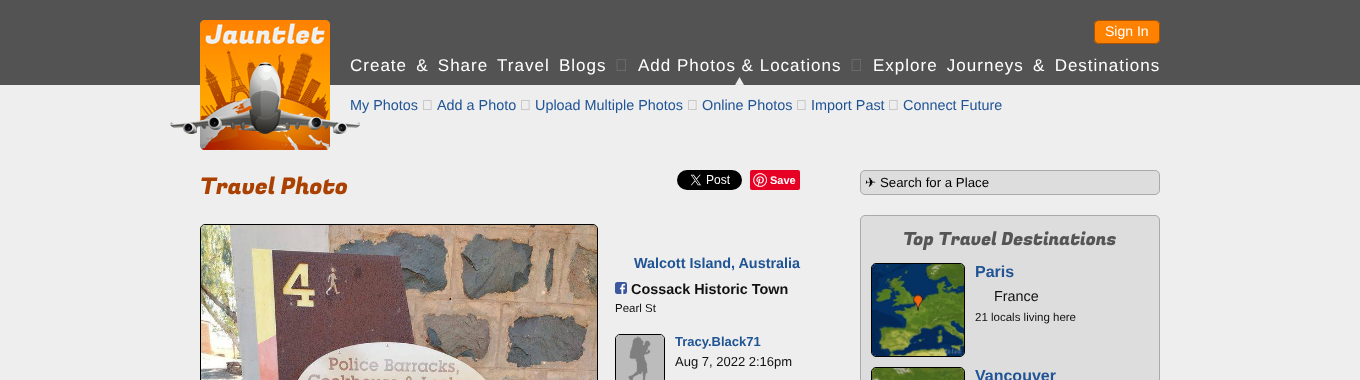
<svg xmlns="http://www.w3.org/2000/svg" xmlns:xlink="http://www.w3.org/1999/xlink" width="1360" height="380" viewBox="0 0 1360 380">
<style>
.cls-1{font:14px Liberation Sans;fill:#ffffff}
.cls-2{font:17px Liberation Sans;letter-spacing:1px;fill:#ffffff}
.cls-3{font:14.4px Liberation Sans;fill:#205495}
.cls-4{font:23px Fugaz One;fill:#aa4100}
.cls-5{font:bold 11px Liberation Sans;fill:#ffffff}
.cls-6{font:bold 14.4px Liberation Sans;fill:#205495}
.cls-7{font:bold 14.4px Liberation Sans;fill:#111111}
.cls-8{font:11.5px Liberation Sans;fill:#111111}
.cls-9{font:bold 13px Liberation Sans;fill:#205495}
.cls-10{font:13px Liberation Sans;fill:#111111}
.cls-11{font:13.25px DejaVu Sans;fill:#000000}
.cls-12{font:13.25px Liberation Sans;fill:#000000}
.cls-13{font:18px Fugaz One;fill:#555555}
.cls-14{font:bold 16px Liberation Sans;fill:#205495}
.cls-15{font:14.4px Liberation Sans;fill:#111111}
</style>
<rect width="100%" height="100%" fill="#eeeeee"/>
<rect fill="#535353" x="0" y="0" width="1360" height="85"/>
<image xlink:href="image0.png" x="200" y="20" width="130" height="65"/>
<image xlink:href="image1.png" x="1094" y="20" width="66" height="24"/>
<rect fill="none" stroke="#a85400" x="1094.5" y="20.5" width="65" height="23" rx="4.5"/>
<image xlink:href="image2.png" x="616" y="59" width="10" height="12"/>
<image xlink:href="image3.png" x="735" y="77" width="9" height="8"/>
<image xlink:href="image2.png" x="851" y="59" width="10" height="12"/>
<image xlink:href="image4.png" x="170" y="120" width="190" height="14"/>
<image xlink:href="image5.png" x="200" y="85" width="130" height="65"/>
<image xlink:href="image6.png" x="423" y="100" width="9" height="10"/>
<image xlink:href="image6.png" x="521" y="100" width="9" height="10"/>
<image xlink:href="image6.png" x="688" y="100" width="9" height="10"/>
<image xlink:href="image6.png" x="797" y="100" width="9" height="10"/>
<image xlink:href="image6.png" x="889" y="100" width="9" height="10"/>
<image xlink:href="image7.png" x="677" y="170" width="65" height="20"/>
<rect fill="#e60023" x="750" y="170" width="50" height="20" rx="2"/>
<image xlink:href="image8.png" x="753" y="173" width="14" height="14"/>
<rect fill="none" stroke="#000000" x="200.5" y="224.5" width="397" height="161" rx="4.5"/>
<image xlink:href="image9.png" x="201" y="225" width="396" height="155"/>
<image xlink:href="image10.png" x="615" y="282" width="12" height="12"/>
<rect fill="none" stroke="#000000" x="615.5" y="334.5" width="49" height="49" rx="4.5"/>
<image xlink:href="image11.png" x="616" y="335" width="48" height="45"/>
<rect fill="#dddddd" stroke="#aaaaaa" x="860.5" y="170.5" width="299" height="24" rx="4.5"/>
<rect fill="#dddddd" stroke="#aaaaaa" x="860.5" y="215.5" width="299" height="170" rx="4.5"/>
<rect fill="none" stroke="#000000" x="871.5" y="263.5" width="93" height="93" rx="4.5"/>
<image xlink:href="image12.png" x="872" y="264" width="92" height="92"/>
<rect fill="none" stroke="#000000" x="871.5" y="367.5" width="93" height="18" rx="4.5"/>
<image xlink:href="image13.png" x="872" y="368" width="92" height="12"/>
<text class="cls-1" x="1105" y="36">Sign In</text>
<text class="cls-2" x="350" y="71" word-spacing="3.5">Create &amp; Share Travel Blogs</text>
<text class="cls-2" x="638" y="71">Add Photos &amp; Locations</text>
<text class="cls-2" x="873" y="71" word-spacing="3.5">Explore Journeys &amp; Destinations</text>
<text class="cls-3" x="350" y="110">My Photos</text>
<text class="cls-3" x="437" y="110">Add a Photo</text>
<text class="cls-3" x="535" y="110">Upload Multiple Photos</text>
<text class="cls-3" x="702" y="110">Online Photos</text>
<text class="cls-3" x="811" y="110">Import Past</text>
<text class="cls-3" x="903" y="110">Connect Future</text>
<text class="cls-4" x="200" y="194">Travel Photo</text>
<text class="cls-5" x="770" y="184">Save</text>
<text class="cls-6" x="634" y="268">Walcott Island, Australia</text>
<text class="cls-7" x="631" y="294">Cossack Historic Town</text>
<text class="cls-8" x="615" y="312">Pearl St</text>
<text class="cls-9" x="675" y="346">Tracy.Black71</text>
<text class="cls-10" x="675" y="366">Aug 7, 2022 2:16pm</text>
<text class="cls-11" x="865" y="187">✈</text>
<text class="cls-12" x="880" y="187">Search for a Place</text>
<text class="cls-13" x="903" y="245">Top Travel Destinations</text>
<text class="cls-14" x="975" y="277">Paris</text>
<text class="cls-15" x="994" y="301">France</text>
<text class="cls-8" x="975" y="321">21 locals living here</text>
<text class="cls-14" x="975" y="381">Vancouver</text>
</svg>
